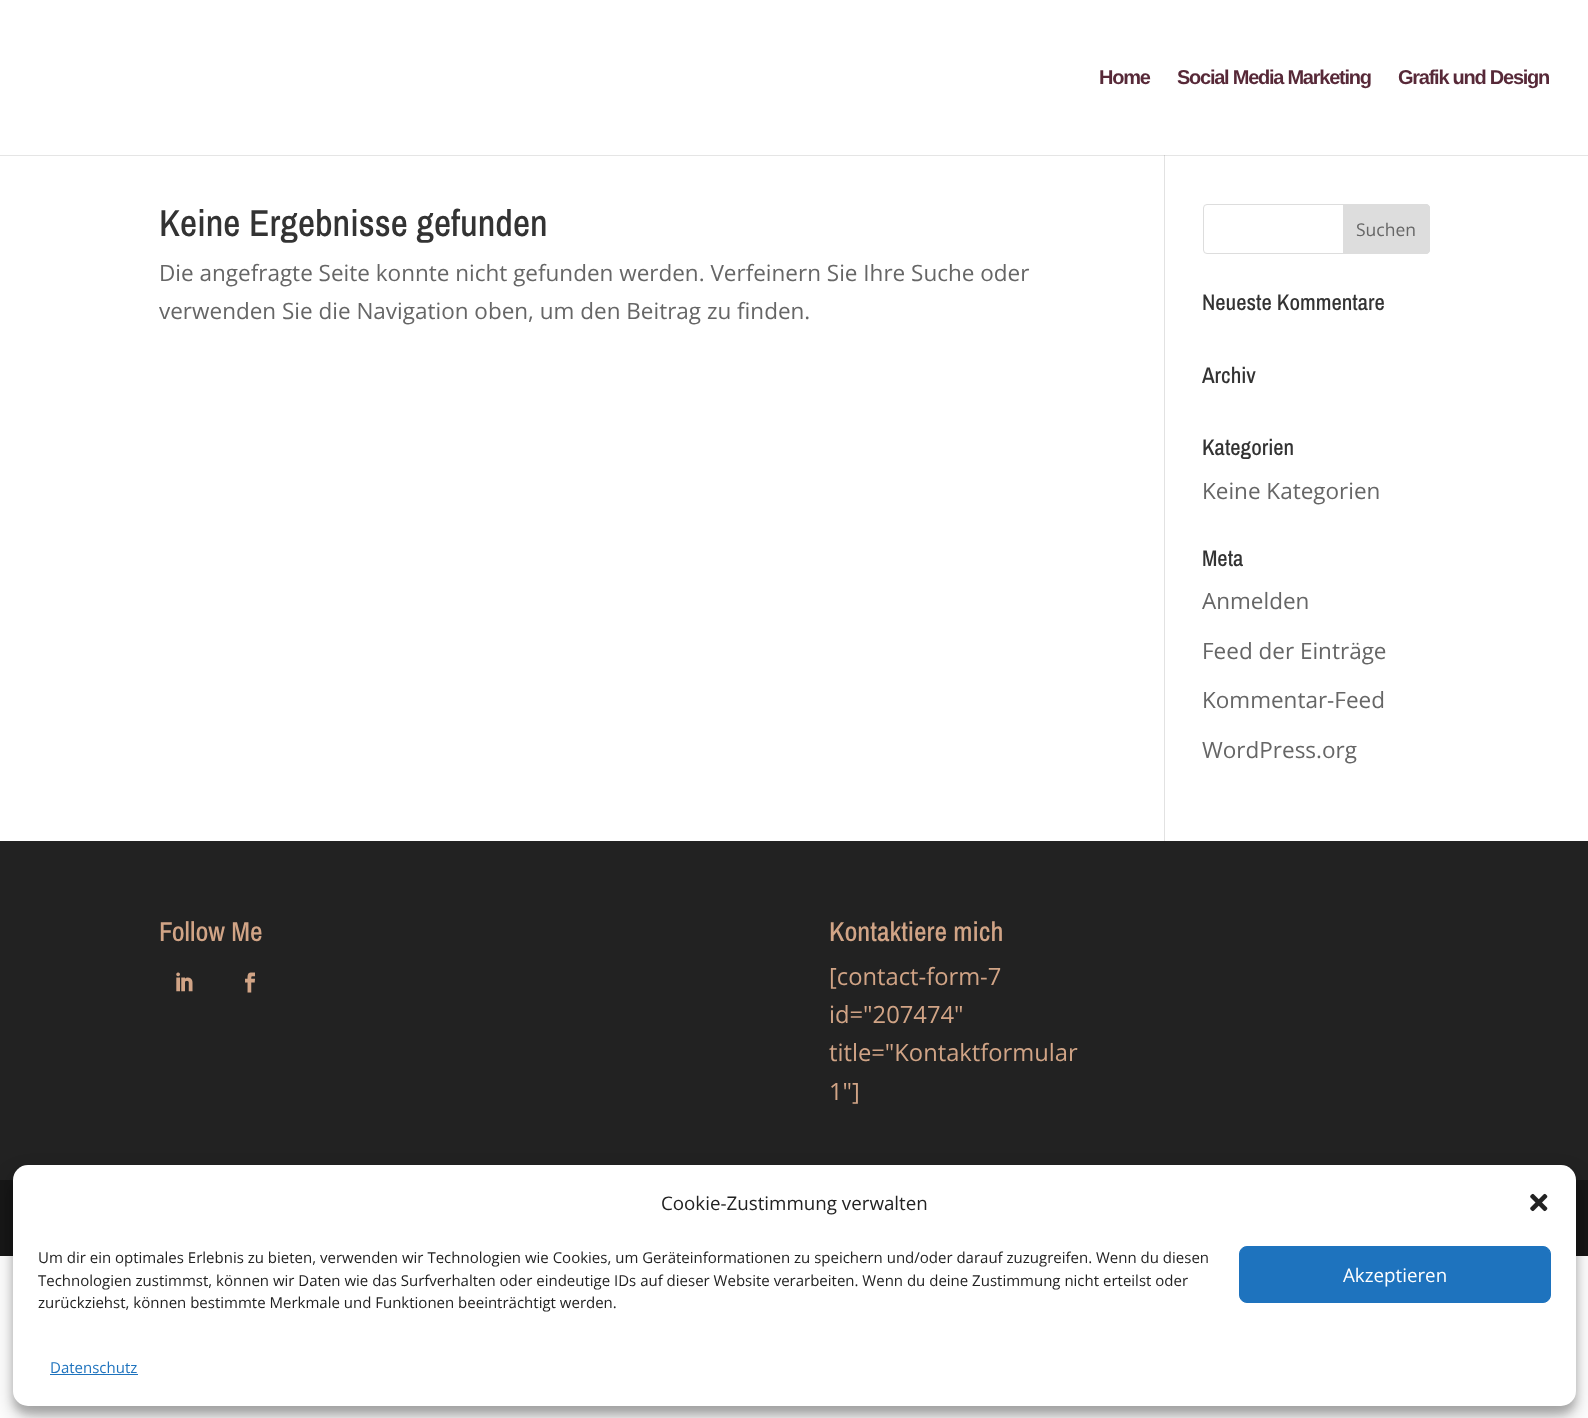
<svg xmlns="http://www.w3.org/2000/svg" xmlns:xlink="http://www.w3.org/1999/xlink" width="1588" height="1418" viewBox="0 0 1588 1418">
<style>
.cls-1{font:bold 20px Liberation Sans;letter-spacing:-1.25px;fill:#572938}
.cls-2{font:500 37.5px Archivo Narrow;fill:#333333}
.cls-3{font:22.5px Open Sans;fill:#666666}
.cls-4{font:17.5px Open Sans;fill:#666666}
.cls-5{font:500 22.5px Archivo Narrow;fill:#333333}
.cls-6{font:500 27.5px Archivo Narrow;fill:#d1a486}
.cls-7{font:23.75px Open Sans;fill:#d1a486}
.cls-8{font:18.75px Open Sans;fill:#222222}
.cls-9{font:15px Open Sans;fill:#222222}
.cls-10{font:18.75px Open Sans;fill:#ffffff}
.cls-11{font:15px Open Sans;fill:#1e73be}
</style>
<rect width="100%" height="100%" fill="#ffffff"/>
<rect fill="#e2e2e2" x="1164" y="155" width="1" height="686"/>
<path fill="#000000" fill-opacity="0.1" d="M0 155V156H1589V1V155Z"/>
<rect fill="none" stroke="#dddddd" x="1203.5" y="204.5" width="226" height="49" rx="3.5"/>
<path fill="#dddddd" stroke="#dddddd" d="M1343.5 204.5H1426C1428 204.5 1429.5 206 1429.5 208V250C1429.5 252 1428 253.5 1426 253.5H1343.5Z"/>
<rect fill="#222222" x="0" y="841" width="1588" height="339"/>
<image xlink:href="image0.png" x="176" y="972" width="17" height="20"/>
<image xlink:href="image1.png" x="245" y="972" width="10" height="21"/>
<rect fill="#171717" x="0" y="1180" width="1588" height="76"/>
<rect fill="#000000" fill-opacity="0.23" filter="blur(4px)" x="13" y="1173" width="1563" height="241" rx="15"/>
<rect fill="#000000" fill-opacity="0.19" filter="blur(12.5px)" x="13" y="1178" width="1563" height="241" rx="15"/>
<rect fill="#ffffff" x="13" y="1165" width="1563" height="241" rx="15"/>
<image xlink:href="image2.png" x="1530" y="1193" width="18" height="19"/>
<rect fill="#1e73be" stroke="#1e73be" x="1239.5" y="1246.5" width="311" height="56" rx="7.5"/>
<rect fill="#1e73be" x="50" y="1374" width="88" height="1"/>
<text class="cls-1" x="1099" y="84">Home</text>
<text class="cls-1" x="1177" y="84">Social Media Marketing</text>
<text class="cls-1" x="1398" y="84">Grafik und Design</text>
<text class="cls-2" x="159" y="236">Keine Ergebnisse gefunden</text>
<text class="cls-3"><tspan x="159" y="281">Die angefragte Seite konnte nicht gefunden werden. Verfeinern Sie Ihre Suche oder</tspan><tspan x="159" y="319">verwenden Sie die Navigation oben, um den Beitrag zu finden.</tspan></text>
<text class="cls-4" x="1356" y="236">Suchen</text>
<text class="cls-5" x="1202" y="310">Neueste Kommentare</text>
<text class="cls-5" x="1202" y="383">Archiv</text>
<text class="cls-5" x="1202" y="455">Kategorien</text>
<text class="cls-3" x="1202" y="499">Keine Kategorien</text>
<text class="cls-5" x="1202" y="566">Meta</text>
<text class="cls-3" x="1202" y="609">Anmelden</text>
<text class="cls-3" x="1202" y="659">Feed der Einträge</text>
<text class="cls-3" x="1202" y="708">Kommentar-Feed</text>
<text class="cls-3" x="1202" y="758">WordPress.org</text>
<text class="cls-6" x="159" y="941">Follow Me</text>
<text class="cls-6" x="829" y="941">Kontaktiere mich</text>
<text class="cls-7"><tspan x="829" y="985">[contact-form-7</tspan><tspan x="829" y="1023">id="207474"</tspan><tspan x="829" y="1061">title="Kontaktformular</tspan><tspan x="829" y="1100">1"]</tspan></text>
<text class="cls-8" x="661" y="1210">Cookie-Zustimmung verwalten</text>
<text class="cls-9"><tspan x="38" y="1263">Um dir ein optimales Erlebnis zu bieten, verwenden wir Technologien wie Cookies, um Geräteinformationen zu speichern und/oder darauf zuzugreifen. Wenn du diesen</tspan><tspan x="38" y="1286">Technologien zustimmst, können wir Daten wie das Surfverhalten oder eindeutige IDs auf dieser Website verarbeiten. Wenn du deine Zustimmung nicht erteilst oder</tspan><tspan x="38" y="1308">zurückziehst, können bestimmte Merkmale und Funktionen beeinträchtigt werden.</tspan></text>
<text class="cls-10" x="1343" y="1282">Akzeptieren</text>
<text class="cls-11" x="50" y="1373">Datenschutz</text>
</svg>
